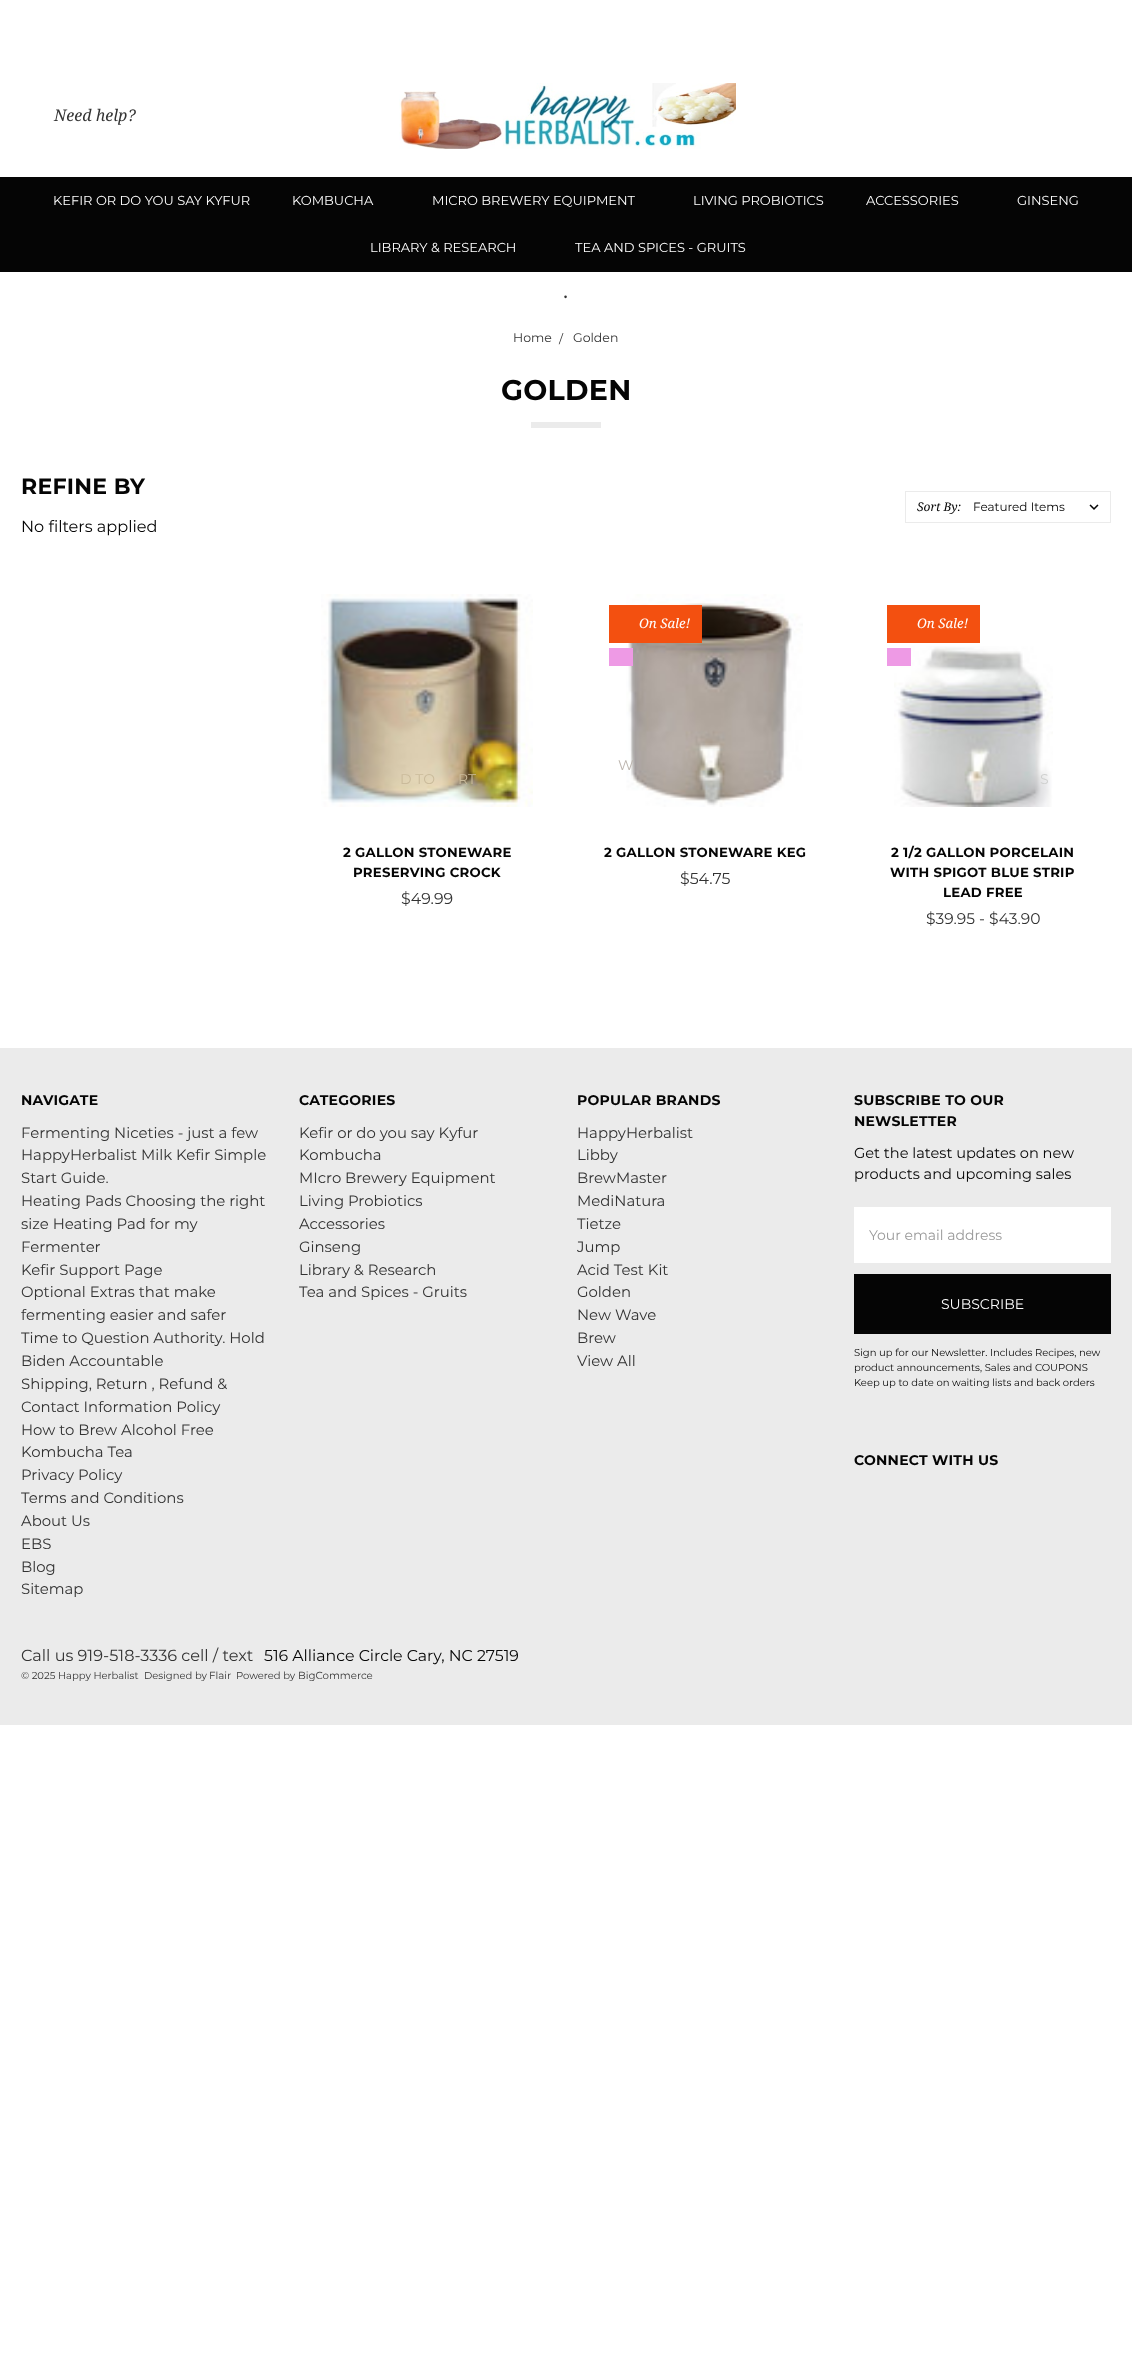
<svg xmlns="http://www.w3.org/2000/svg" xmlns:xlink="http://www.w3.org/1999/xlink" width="1132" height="2360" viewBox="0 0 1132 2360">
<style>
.cls-1{font:italic 16.1px Noto Serif;fill:#333333}
.cls-2{font:13px Montserrat;fill:#ffffff}
.cls-3{font:24px Montserrat;fill:#333333}
.cls-4{font:12.5px Montserrat;fill:#333333}
.cls-5{font:12px Montserrat;fill:#333333}
.cls-6{font:bold 28.5px Montserrat;letter-spacing:0.25px;fill:#050505}
.cls-7{font:bold 22px Montserrat;letter-spacing:0.25px;fill:#050505}
.cls-8{font:16.1px Montserrat;fill:#050505}
.cls-9{font:italic 12px Noto Serif;fill:#050505}
.cls-10{font:12px Montserrat;fill:#050505}
.cls-11{font:14px Montserrat;fill:#cabb9b}
.cls-12{font:bold 13.25px Montserrat;letter-spacing:0.25px;fill:#050505}
.cls-13{font:15.75px Montserrat;fill:#333333}
.cls-14{font:italic 13.25px Noto Serif;fill:#ffffff}
.cls-15{font:14px Montserrat;fill:#bcb5ae}
.cls-16{font:14px Montserrat;fill:#cfd0cf}
.cls-17{font:15.5px Montserrat;fill:#333333}
.cls-18{font:bold 14px Montserrat;letter-spacing:0.25px;fill:#050505}
.cls-19{font:14.9px Montserrat;fill:#333333}
.cls-20{font:14.6px Montserrat;fill:#050505}
.cls-21{font:14px Montserrat;fill:#999999}
.cls-22{font:14px Montserrat;fill:#ffffff}
.cls-23{font:10px Montserrat;fill:#050505}
.cls-24{font:16.1px Montserrat;fill:#333333}
.cls-25{font:15.75px Montserrat;fill:#050505}
.cls-26{font:10px Montserrat;fill:#333333}
.cls-27{font:10.25px Montserrat;fill:#333333}
</style>
<rect width="100%" height="100%" fill="#ffffff"/>
<image xlink:href="image0.png" x="399" y="83" width="337" height="66"/>
<rect fill="#050505" x="0" y="177" width="1132" height="95"/>
<rect fill="#ebebeb" x="531" y="422" width="70" height="6"/>
<rect fill="none" stroke="#ebebeb" x="905.5" y="491.5" width="205" height="31"/>
<image xlink:href="image1.png" x="1089" y="504" width="10" height="6"/>
<image xlink:href="image2.png" x="321" y="594" width="212" height="213"/>
<image xlink:href="image3.png" x="626" y="594" width="177" height="213"/>
<rect fill="#f35010" x="609" y="605" width="93" height="38"/>
<rect fill="#ee9ae5" x="609" y="648" width="24" height="18"/>
<rect fill="#f35010" x="887" y="605" width="93" height="38"/>
<image xlink:href="image4.png" x="894" y="646" width="159" height="161"/>
<rect fill="#ee9ae5" x="887" y="648" width="24" height="18"/>
<rect fill="#ebebeb" x="0" y="1048" width="1132" height="677"/>
<rect fill="#ffffff" x="854" y="1207" width="257" height="56"/>
<rect fill="#050505" x="854" y="1274" width="257" height="60"/>
<text class="cls-1" x="54" y="121">Need help?</text>
<text class="cls-2" x="53" y="205">KEFIR OR DO YOU SAY KYFUR</text>
<text class="cls-2" x="292" y="205">KOMBUCHA</text>
<text class="cls-2" x="432" y="205">MICRO BREWERY EQUIPMENT</text>
<text class="cls-2" x="693" y="205">LIVING PROBIOTICS</text>
<text class="cls-2" x="866" y="205">ACCESSORIES</text>
<text class="cls-2" x="1017" y="205">GINSENG</text>
<text class="cls-2" x="370" y="252">LIBRARY &amp; RESEARCH</text>
<text class="cls-2" x="575" y="252">TEA AND SPICES - GRUITS</text>
<text class="cls-3" x="563" y="298">.</text>
<text class="cls-4" x="513" y="342">Home</text>
<text class="cls-5" x="559" y="343">/</text>
<text class="cls-4" x="573" y="342">Golden</text>
<text class="cls-6" x="501" y="400">GOLDEN</text>
<text class="cls-7" x="21" y="494">REFINE BY</text>
<text class="cls-8" x="21" y="532">No filters applied</text>
<text class="cls-9" x="917" y="511">Sort By:</text>
<text class="cls-10" x="973" y="511">Featured Items</text>
<text class="cls-11" x="400" y="784">D TO</text>
<text class="cls-11" x="458" y="784">RT</text>
<text class="cls-12" x="343" y="857">2 GALLON STONEWARE</text>
<text class="cls-12" x="353" y="877">PRESERVING CROCK</text>
<text class="cls-13" x="401" y="904">$49.99</text>
<text class="cls-14" x="639" y="628">On Sale!</text>
<text class="cls-15" x="618" y="770">W</text>
<text class="cls-12" x="604" y="857">2 GALLON STONEWARE KEG</text>
<text class="cls-13" x="680" y="884">$54.75</text>
<text class="cls-14" x="917" y="628">On Sale!</text>
<text class="cls-16" x="1040" y="784">S</text>
<text class="cls-12" x="891" y="857">2 1/2 GALLON PORCELAIN</text>
<text class="cls-12" x="890" y="877">WITH SPIGOT BLUE STRIP</text>
<text class="cls-12" x="943" y="897">LEAD FREE</text>
<text class="cls-17" x="926" y="924">$39.95 - $43.90</text>
<text class="cls-18" x="21" y="1105">NAVIGATE</text>
<text class="cls-19"><tspan x="21" y="1138">Fermenting Niceties - just a few</tspan><tspan x="21" y="1160">HappyHerbalist Milk Kefir Simple</tspan><tspan x="21" y="1183">Start Guide.</tspan><tspan x="21" y="1206">Heating Pads Choosing the right</tspan><tspan x="21" y="1229">size Heating Pad for my</tspan><tspan x="21" y="1252">Fermenter</tspan><tspan x="21" y="1275">Kefir Support Page</tspan><tspan x="21" y="1297">Optional Extras that make</tspan><tspan x="21" y="1320">fermenting easier and safer</tspan><tspan x="21" y="1343">Time to Question Authority. Hold</tspan><tspan x="21" y="1366">Biden Accountable</tspan><tspan x="21" y="1389">Shipping, Return , Refund &amp;</tspan><tspan x="21" y="1412">Contact Information Policy</tspan><tspan x="21" y="1435">How to Brew Alcohol Free</tspan><tspan x="21" y="1457">Kombucha Tea</tspan><tspan x="21" y="1480">Privacy Policy</tspan><tspan x="21" y="1503">Terms and Conditions</tspan><tspan x="21" y="1526">About Us</tspan><tspan x="21" y="1549">EBS</tspan><tspan x="21" y="1572">Blog</tspan><tspan x="21" y="1594">Sitemap</tspan></text>
<text class="cls-18" x="299" y="1105">CATEGORIES</text>
<text class="cls-19"><tspan x="299" y="1138">Kefir or do you say Kyfur</tspan><tspan x="299" y="1160">Kombucha</tspan><tspan x="299" y="1183">MIcro Brewery Equipment</tspan><tspan x="299" y="1206">Living Probiotics</tspan><tspan x="299" y="1229">Accessories</tspan><tspan x="299" y="1252">Ginseng</tspan><tspan x="299" y="1275">Library &amp; Research</tspan><tspan x="299" y="1297">Tea and Spices - Gruits</tspan></text>
<text class="cls-18" x="577" y="1105">POPULAR BRANDS</text>
<text class="cls-19"><tspan x="577" y="1138">HappyHerbalist</tspan><tspan x="577" y="1160">Libby</tspan><tspan x="577" y="1183">BrewMaster</tspan><tspan x="577" y="1206">MediNatura</tspan><tspan x="577" y="1229">Tietze</tspan><tspan x="577" y="1252">Jump</tspan><tspan x="577" y="1275">Acid Test Kit</tspan><tspan x="577" y="1297">Golden</tspan><tspan x="577" y="1320">New Wave</tspan><tspan x="577" y="1343">Brew</tspan><tspan x="577" y="1366">View All</tspan></text>
<text class="cls-18"><tspan x="854" y="1105">SUBSCRIBE TO OUR</tspan><tspan x="854" y="1126">NEWSLETTER</tspan></text>
<text class="cls-20"><tspan x="854" y="1158">Get the latest updates on new</tspan><tspan x="854" y="1179">products and upcoming sales</tspan></text>
<text class="cls-21" x="869" y="1240">Your email address</text>
<text class="cls-22" x="941" y="1309">SUBSCRIBE</text>
<text class="cls-23"><tspan x="854" y="1356">Sign up for our Newsletter. Includes Recipes, new</tspan><tspan x="854" y="1371">product announcements, Sales and COUPONS</tspan><tspan x="854" y="1386">Keep up to date on waiting lists and back orders</tspan></text>
<text class="cls-18" x="854" y="1465">CONNECT WITH US</text>
<text class="cls-24" x="21" y="1661">Call us 919-518-3336 cell / text</text>
<text class="cls-25" x="264" y="1661">516 Alliance Circle Cary, NC 27519</text>
<text class="cls-26" x="21" y="1679">© 2025 Happy Herbalist</text>
<text class="cls-26" x="144" y="1679">Designed by</text>
<text class="cls-27" x="209" y="1679">Flair</text>
<text class="cls-26" x="236" y="1679">Powered by</text>
<text class="cls-27" x="298" y="1679">BigCommerce</text>
</svg>
